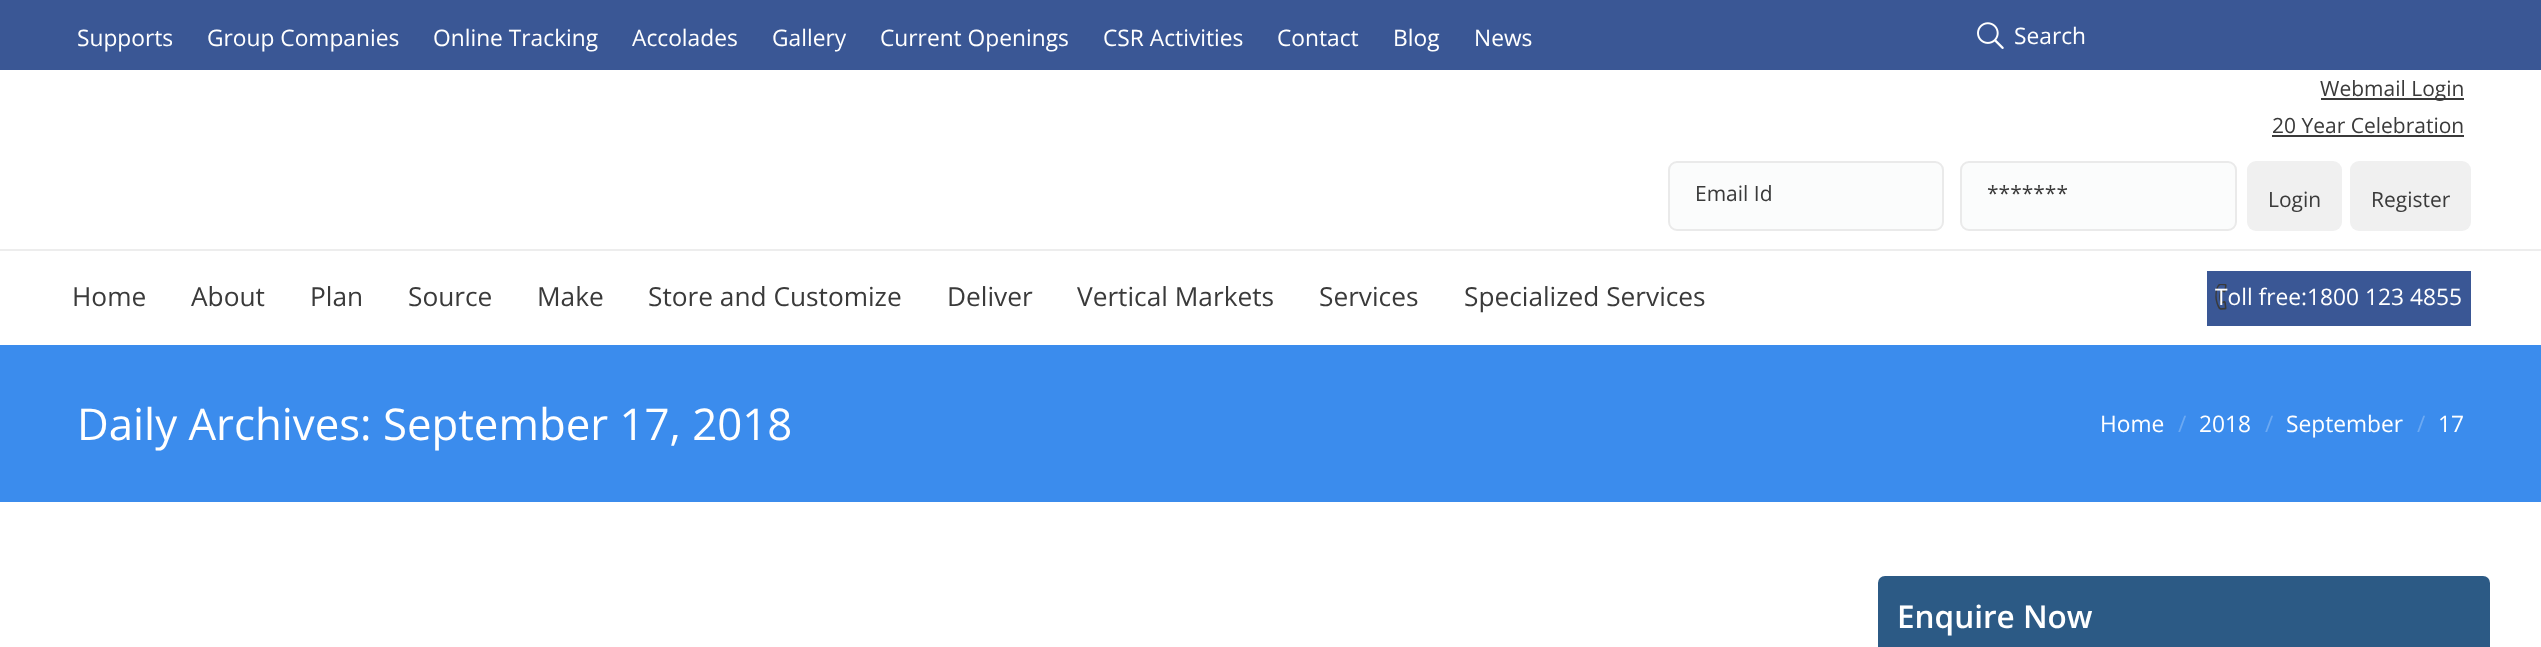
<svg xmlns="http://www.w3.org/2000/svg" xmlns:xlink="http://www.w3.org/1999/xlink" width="2541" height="647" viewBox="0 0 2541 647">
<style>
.cls-1{font:22.75px Open Sans;fill:#ffffff}
.cls-2{font:21px Open Sans;fill:#3a3a3a}
.cls-3{font:26.25px Open Sans;fill:#3a3a3a}
.cls-4{font:43.75px Open Sans;fill:#ffffff}
.cls-5{font:22.75px Open Sans;fill:#6ca9f2}
.cls-6{font:600 31.5px Open Sans;fill:#ffffff}
</style>
<rect width="100%" height="100%" fill="#ffffff"/>
<rect fill="#3a5795" x="0" y="0" width="2541" height="70"/>
<image xlink:href="image0.png" x="1977" y="22" width="27" height="27"/>
<rect fill="#3a3a3a" x="2321" y="98" width="143" height="2"/>
<rect fill="#3a3a3a" x="2272" y="135" width="192" height="2"/>
<rect fill="#fbfcfc" stroke="#eaeaea" stroke-width="2" x="1669" y="162" width="274" height="68" rx="8"/>
<rect fill="#fbfcfc" stroke="#eaeaea" stroke-width="2" x="1961" y="162" width="275" height="68" rx="8"/>
<rect fill="#f0f0f0" x="2247" y="161" width="95" height="70" rx="9"/>
<rect fill="#f0f0f0" x="2350" y="161" width="121" height="70" rx="9"/>
<rect fill="#ededed" x="0" y="249" width="2541" height="2"/>
<rect fill="#3a5795" x="2207" y="271" width="264" height="55"/>
<image xlink:href="image1.png" x="2215" y="284" width="12" height="26"/>
<rect fill="#3b8ced" x="0" y="345" width="2541" height="157"/>
<path fill="#2c5a85" stroke="#2c5a85" stroke-width="2" d="M1885 577H2483C2486.5 577 2489 579.5 2489 583V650H1879V583C1879 579.5 1881.5 577 1885 577Z"/>
<text class="cls-1" x="77" y="46">Supports</text>
<text class="cls-1" x="207" y="46">Group Companies</text>
<text class="cls-1" x="433" y="46">Online Tracking</text>
<text class="cls-1" x="632" y="46">Accolades</text>
<text class="cls-1" x="772" y="46">Gallery</text>
<text class="cls-1" x="880" y="46">Current Openings</text>
<text class="cls-1" x="1103" y="46">CSR Activities</text>
<text class="cls-1" x="1277" y="46">Contact</text>
<text class="cls-1" x="1393" y="46">Blog</text>
<text class="cls-1" x="1474" y="46">News</text>
<text class="cls-1" x="2014" y="44">Search</text>
<text class="cls-2" x="2320" y="96">Webmail Login</text>
<text class="cls-2" x="2272" y="133">20 Year Celebration</text>
<text class="cls-2" x="1695" y="201">Email Id</text>
<text class="cls-2" x="1987" y="201">*******</text>
<text class="cls-2" x="2268" y="207">Login</text>
<text class="cls-2" x="2371" y="207">Register</text>
<text class="cls-3" x="72" y="306">Home</text>
<text class="cls-3" x="191" y="306">About</text>
<text class="cls-3" x="310" y="306">Plan</text>
<text class="cls-3" x="408" y="306">Source</text>
<text class="cls-3" x="537" y="306">Make</text>
<text class="cls-3" x="648" y="306">Store and Customize</text>
<text class="cls-3" x="947" y="306">Deliver</text>
<text class="cls-3" x="1077" y="306">Vertical Markets</text>
<text class="cls-3" x="1319" y="306">Services</text>
<text class="cls-3" x="1464" y="306">Specialized Services</text>
<text class="cls-1" x="2215" y="305">Toll free:1800 123 4855</text>
<text class="cls-4" x="77" y="440">Daily Archives: September 17, 2018</text>
<text class="cls-1" x="2100" y="432">Home</text>
<text class="cls-5" x="2178" y="432">/</text>
<text class="cls-1" x="2199" y="432">2018</text>
<text class="cls-5" x="2265" y="432">/</text>
<text class="cls-1" x="2286" y="432">September</text>
<text class="cls-5" x="2417" y="432">/</text>
<text class="cls-1" x="2438" y="432">17</text>
<text class="cls-6" x="1897" y="628">Enquire Now</text>
</svg>
